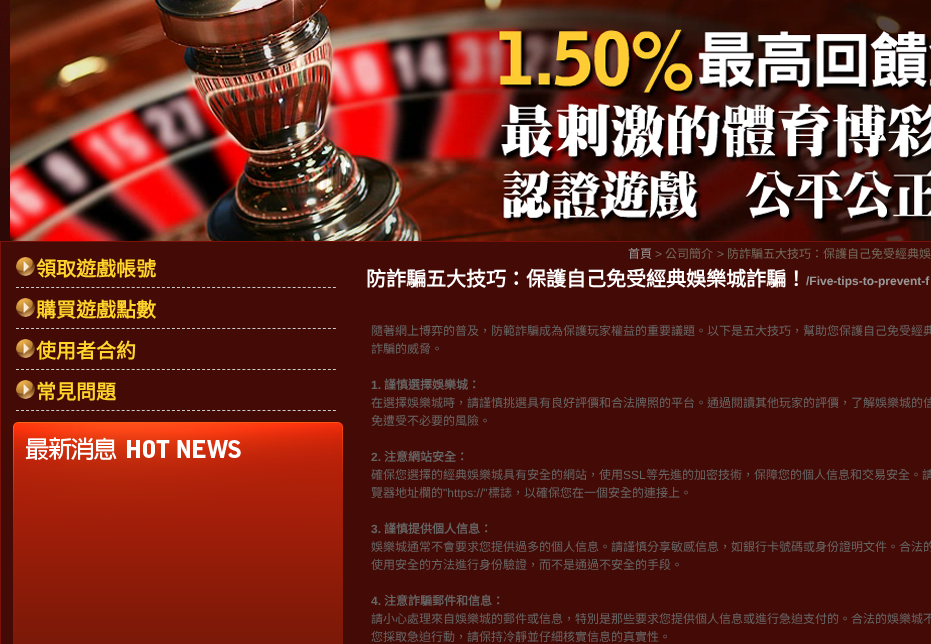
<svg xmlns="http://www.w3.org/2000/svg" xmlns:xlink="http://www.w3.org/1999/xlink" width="931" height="644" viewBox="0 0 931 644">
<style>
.cls-1{font:bold 20px Noto Sans CJK TC;fill:#ffd52c}
.cls-2{font:12px Noto Sans CJK TC;fill:#999999}
.cls-3{font:12px Liberation Sans;fill:#726b5d}
.cls-4{font:12px Noto Sans CJK TC;fill:#726b5d}
.cls-5{font:bold 20px Noto Sans CJK TC;fill:#ffffff}
.cls-6{font:bold 12px Liberation Sans;fill:#999999}
.cls-7{font:12px Noto Sans CJK TC;fill:#666666}
.cls-8{font:bold 12px Liberation Sans;fill:#666666}
.cls-9{font:bold 12px Noto Sans CJK TC;fill:#666666}
.cls-10{font:12px Liberation Sans;fill:#666666}
</style>
<rect width="100%" height="100%" fill="#2c0906"/>
<image xlink:href="image0.png" x="0" y="0" width="10" height="169"/>
<image xlink:href="image1.png" x="10" y="0" width="921" height="241"/>
<rect fill="#440b06" x="1" y="242" width="350" height="402"/>
<rect fill="none" stroke="#7a1007" x="0.5" y="241.5" width="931" height="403"/>
<image xlink:href="image2.png" x="16" y="257" width="19" height="19"/>
<path fill="none" stroke="#cccccc" stroke-dasharray="3 2.03" d="M16 287.5H336"/>
<image xlink:href="image2.png" x="16" y="298" width="19" height="19"/>
<path fill="none" stroke="#cccccc" stroke-dasharray="3 2.03" d="M16 328.5H336"/>
<image xlink:href="image2.png" x="16" y="339" width="19" height="19"/>
<path fill="none" stroke="#cccccc" stroke-dasharray="3 2.03" d="M16 369.5H336"/>
<image xlink:href="image2.png" x="16" y="380" width="19" height="19"/>
<path fill="none" stroke="#cccccc" stroke-dasharray="3 2.03" d="M16 410.5H336"/>
<image xlink:href="image3.png" x="13" y="422" width="330" height="222"/>
<rect fill="#440b06" x="351" y="242" width="580" height="402"/>
<text class="cls-1" x="36" y="276">領取遊戲帳號</text>
<text class="cls-1" x="36" y="317">購買遊戲點數</text>
<text class="cls-1" x="36" y="358">使用者合約</text>
<text class="cls-1" x="36" y="399">常見問題</text>
<text class="cls-2" x="628" y="258">首頁</text>
<text class="cls-3" x="655" y="258">&gt;</text>
<text class="cls-4" x="665" y="258">公司簡介</text>
<text class="cls-3" x="717" y="258">&gt;</text>
<text class="cls-4" x="727" y="258">防詐騙五大技巧：保護自己免受經典娛</text>
<text class="cls-5" x="366" y="286">防詐騙五大技巧：保護自己免受經典娛樂城詐騙！</text>
<text class="cls-6" x="806" y="285">/Five-tips-to-prevent-f</text>
<text class="cls-7"><tspan x="371" y="335">隨著網上博弈的普及，防範詐騙成為保護玩家權益的重要議題。以下是五大技巧，幫助您保護自己免受經典</tspan><tspan x="371" y="353">詐騙的威脅。</tspan></text>
<text class="cls-8" x="371" y="389">1.</text>
<text class="cls-9" x="384" y="389">謹慎選擇娛樂城：</text>
<text class="cls-7"><tspan x="371" y="407">在選擇娛樂城時，請謹慎挑選具有良好評價和合法牌照的平台。通過閱讀其他玩家的評價，了解娛樂城的信</tspan><tspan x="371" y="425">免遭受不必要的風險。</tspan></text>
<text class="cls-8" x="371" y="461">2.</text>
<text class="cls-9" x="384" y="461">注意網站安全：</text>
<text class="cls-7" x="371" y="479">確保您選擇的經典娛樂城具有安全的網站，使用</text>
<text class="cls-10" x="623" y="479">SSL</text>
<text class="cls-7" x="646" y="479">等先進的加密技術，保障您的個人信息和交易安全。請</text>
<text class="cls-7" x="371" y="497">覽器地址欄的</text>
<text class="cls-10" x="443" y="497">"https://"</text>
<text class="cls-7" x="488" y="497">標誌，以確保您在一個安全的連接上。</text>
<text class="cls-8" x="371" y="533">3.</text>
<text class="cls-9" x="384" y="533">謹慎提供個人信息：</text>
<text class="cls-7"><tspan x="371" y="551">娛樂城通常不會要求您提供過多的個人信息。請謹慎分享敏感信息，如銀行卡號碼或身份證明文件。合法的</tspan><tspan x="371" y="569">使用安全的方法進行身份驗證，而不是通過不安全的手段。</tspan></text>
<text class="cls-8" x="371" y="605">4.</text>
<text class="cls-9" x="384" y="605">注意詐騙郵件和信息：</text>
<text class="cls-7"><tspan x="371" y="623">請小心處理來自娛樂城的郵件或信息，特別是那些要求您提供個人信息或進行急迫支付的。合法的娛樂城不</tspan><tspan x="371" y="641">您採取急迫行動，請保持冷靜並仔細核實信息的真實性。</tspan></text>
</svg>
